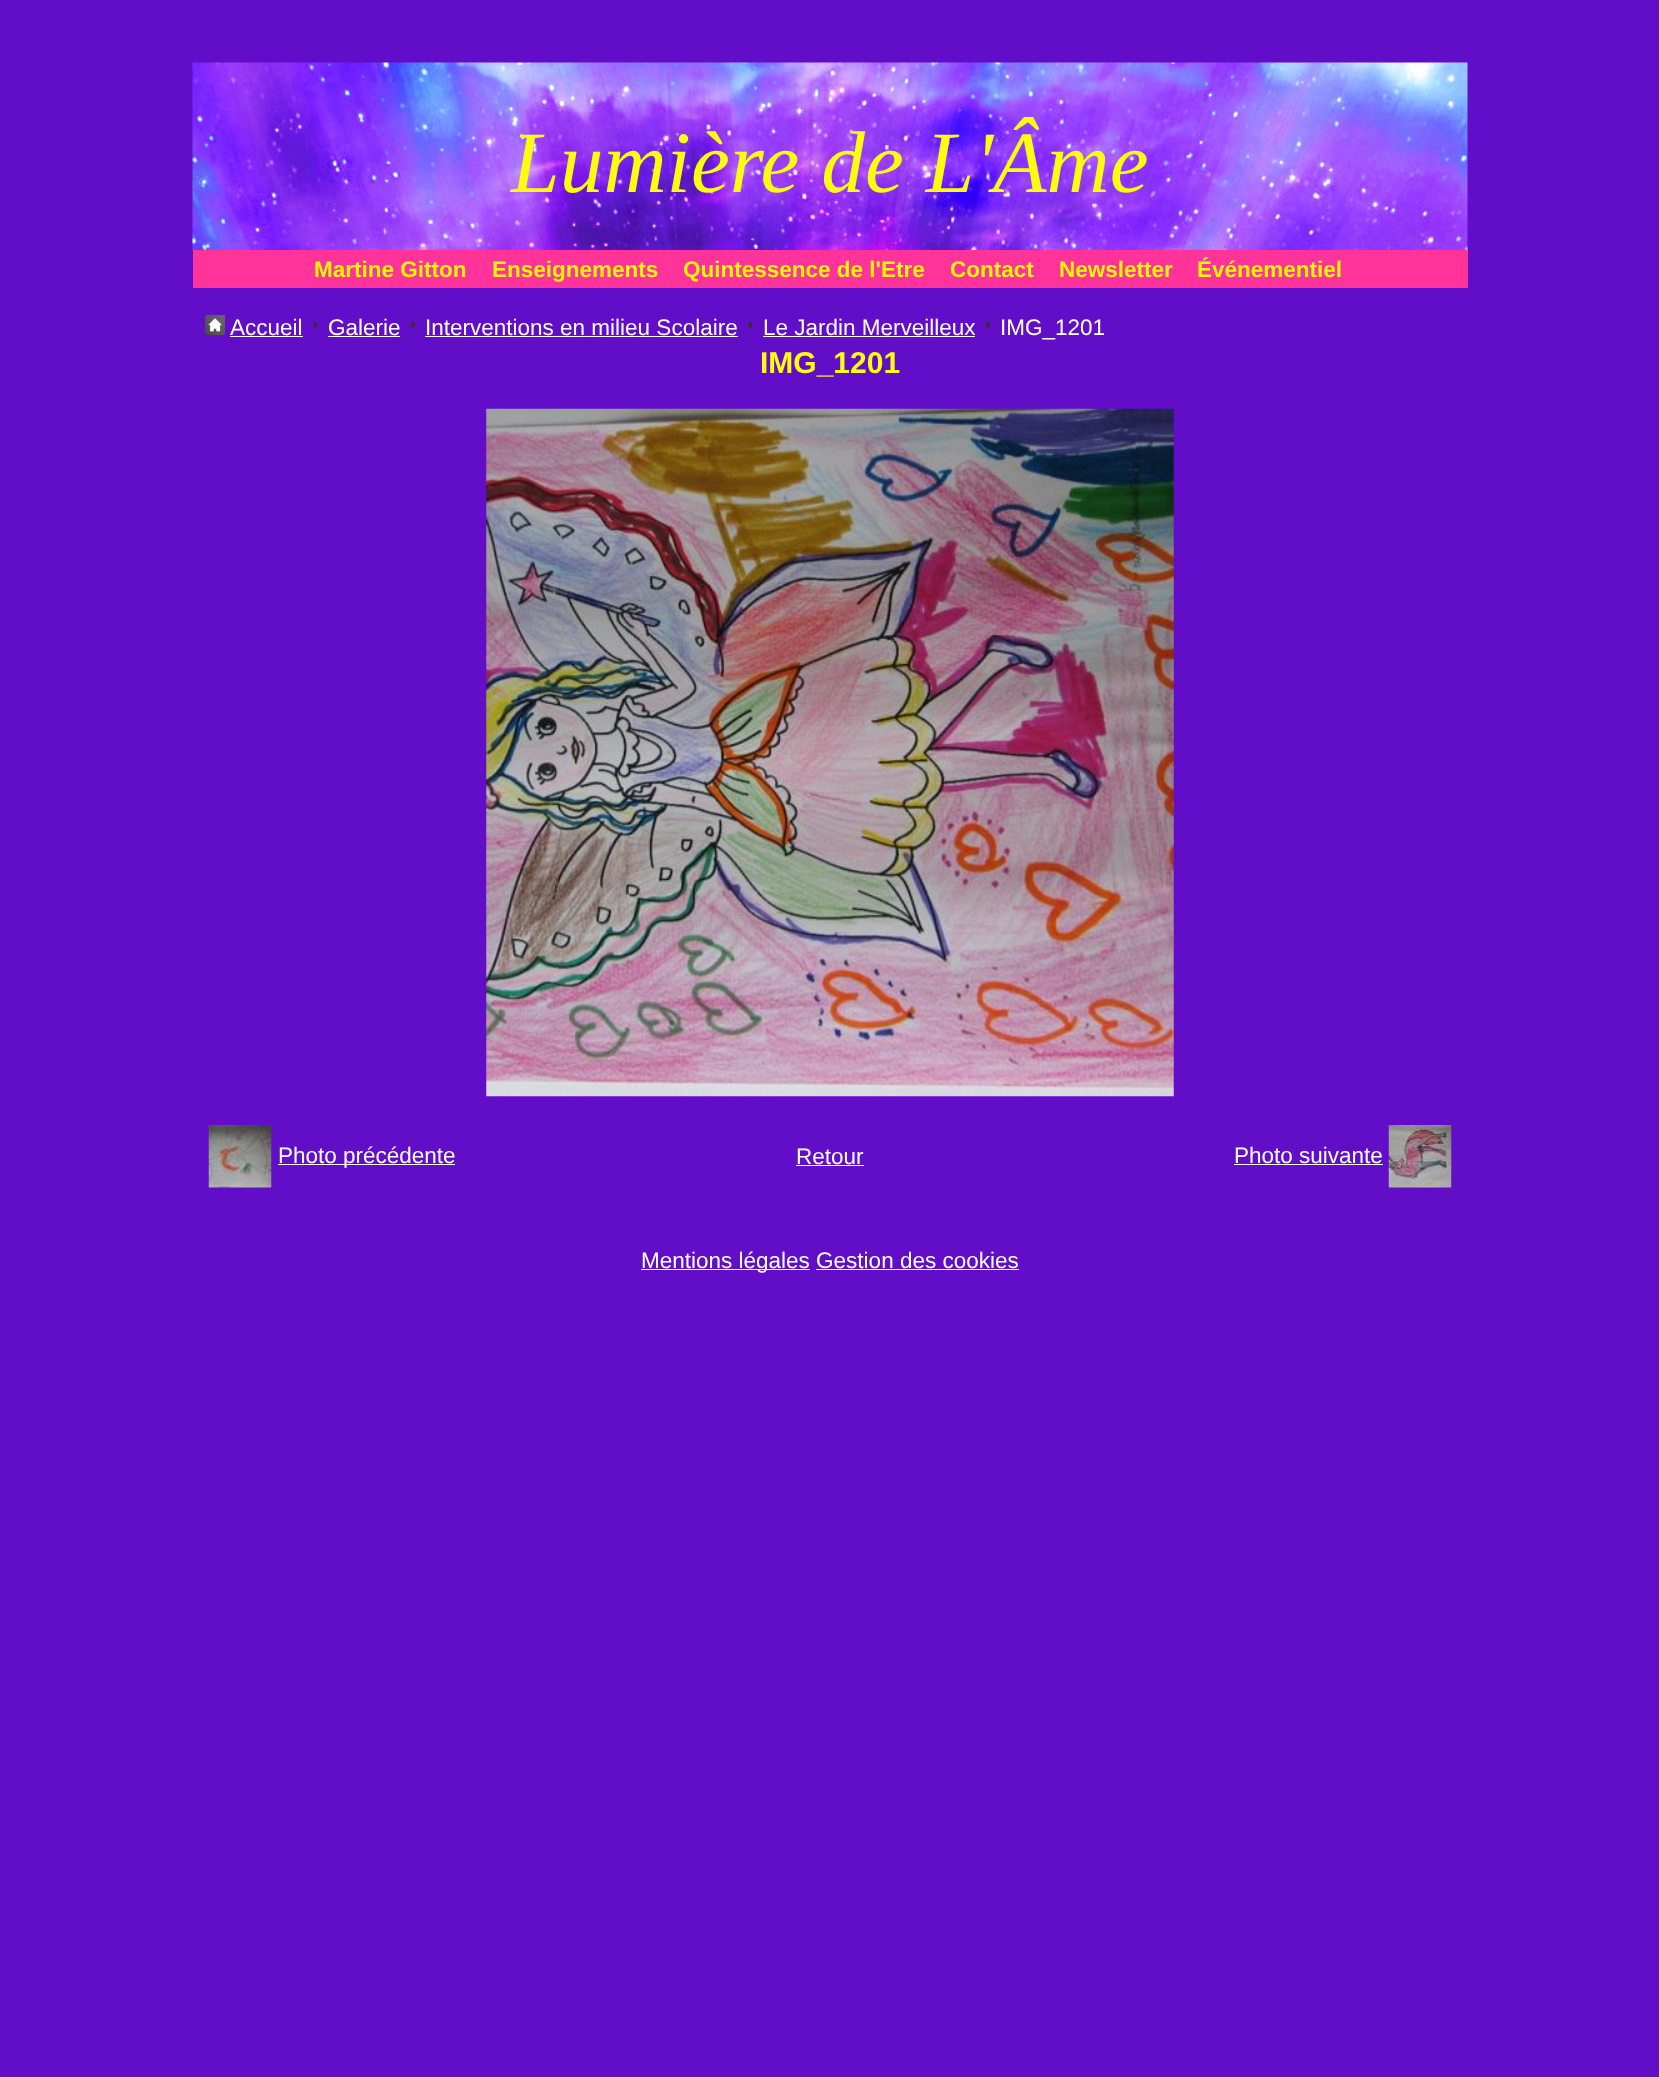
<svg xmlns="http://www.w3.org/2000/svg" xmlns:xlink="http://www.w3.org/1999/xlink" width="1659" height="2077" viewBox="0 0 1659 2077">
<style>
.cls-1{font:italic 87.5px Liberation Serif;fill:#fcfc0f}
.cls-2{font:bold 22.5px Liberation Sans;fill:#f5f50c}
.cls-3{font:22.5px Liberation Sans;fill:#ffffff}
.cls-4{font:bold 30px Liberation Sans;fill:#fcfc0f}
</style>
<rect width="100%" height="100%" fill="#620ec9"/>
<image xlink:href="image0.png" x="192" y="62" width="1276" height="188"/>
<rect fill="#ff3399" x="193" y="250" width="1275" height="38"/>
<image xlink:href="image1.png" x="205" y="315" width="20" height="20"/>
<rect fill="#ffffff" x="230" y="336" width="73" height="1"/>
<image xlink:href="image2.png" x="313" y="321" width="5" height="8"/>
<rect fill="#ffffff" x="328" y="336" width="72" height="1"/>
<image xlink:href="image3.png" x="411" y="321" width="5" height="8"/>
<rect fill="#ffffff" x="425" y="336" width="313" height="1"/>
<image xlink:href="image4.png" x="748" y="321" width="5" height="8"/>
<rect fill="#ffffff" x="763" y="336" width="212" height="1"/>
<image xlink:href="image3.png" x="986" y="321" width="5" height="8"/>
<image xlink:href="image5.png" x="486" y="408" width="688" height="689"/>
<image xlink:href="image6.png" x="208" y="1125" width="64" height="63"/>
<rect fill="#ffffff" x="278" y="1164" width="177" height="1"/>
<rect fill="#ffffff" x="796" y="1165" width="68" height="1"/>
<rect fill="#ffffff" x="1234" y="1164" width="149" height="1"/>
<image xlink:href="image7.png" x="1388" y="1125" width="64" height="63"/>
<rect fill="#ffffff" x="641" y="1269" width="169" height="1"/>
<rect fill="#ffffff" x="816" y="1269" width="203" height="1"/>
<text class="cls-1" x="511" y="192">Lumière de L'Âme</text>
<text class="cls-2" x="314" y="277">Martine Gitton</text>
<text class="cls-2" x="492" y="277">Enseignements</text>
<text class="cls-2" x="683" y="277">Quintessence de l'Etre</text>
<text class="cls-2" x="950" y="277">Contact</text>
<text class="cls-2" x="1059" y="277">Newsletter</text>
<text class="cls-2" x="1197" y="277">Événementiel</text>
<text class="cls-3" x="230" y="335">Accueil</text>
<text class="cls-3" x="328" y="335">Galerie</text>
<text class="cls-3" x="425" y="335">Interventions en milieu Scolaire</text>
<text class="cls-3" x="763" y="335">Le Jardin Merveilleux</text>
<text class="cls-3" x="1000" y="335">IMG_1201</text>
<text class="cls-4" x="760" y="373">IMG_1201</text>
<text class="cls-3" x="278" y="1163">Photo précédente</text>
<text class="cls-3" x="796" y="1164">Retour</text>
<text class="cls-3" x="1234" y="1163">Photo suivante</text>
<text class="cls-3" x="641" y="1268">Mentions légales Gestion des cookies</text>
</svg>
